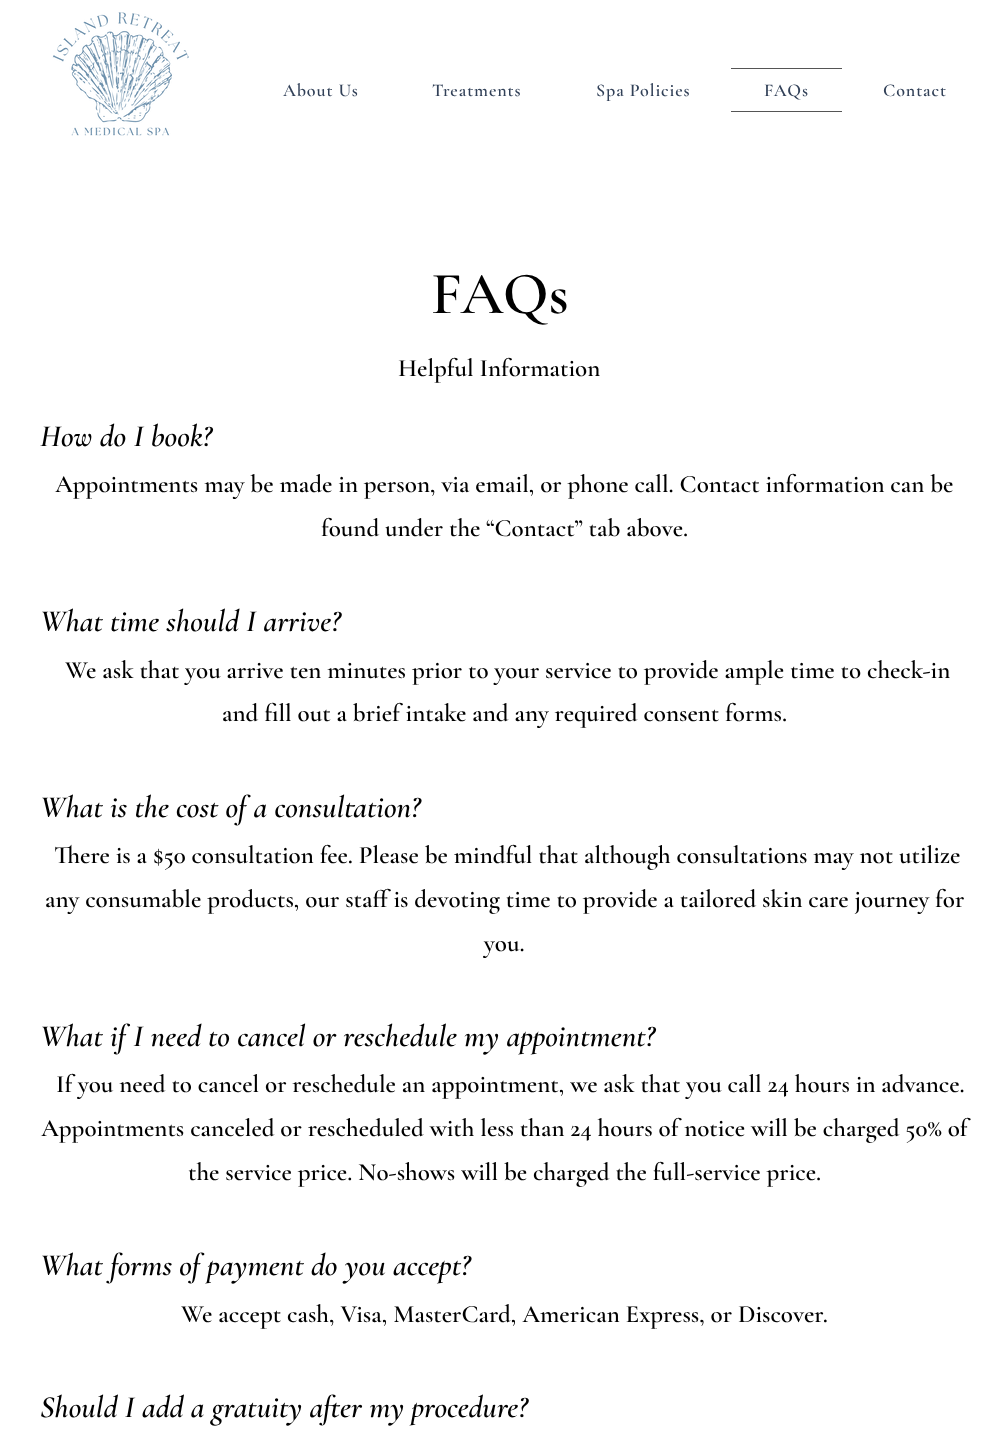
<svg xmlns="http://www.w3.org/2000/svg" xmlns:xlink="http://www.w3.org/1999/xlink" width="999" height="1436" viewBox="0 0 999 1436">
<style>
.cls-1{font:600 18px Cormorant Garamond;letter-spacing:0.9px;fill:#324158}
.cls-2{font:600 60px Cormorant Garamond;fill:#000000}
.cls-3{font:600 25px Cormorant Garamond;fill:#000000}
.cls-4{font:italic 600 31px Cormorant Garamond;fill:#000000}
</style>
<rect width="100%" height="100%" fill="#ffffff"/>
<image xlink:href="image0.png" x="52" y="12" width="137" height="124"/>
<rect fill="#555555" x="731" y="68" width="111" height="1"/>
<rect fill="#555555" x="731" y="111" width="111" height="1"/>
<text class="cls-1" x="283" y="96">About Us</text>
<text class="cls-1" x="432" y="96">Treatments</text>
<text class="cls-1" x="596" y="96">Spa Policies</text>
<text class="cls-1" x="764" y="96">FAQs</text>
<text class="cls-1" x="883" y="96">Contact</text>
<text class="cls-2" x="431" y="313">FAQs</text>
<text class="cls-3" x="398" y="376">Helpful Information</text>
<text class="cls-4" x="40" y="446">How do I book?</text>
<text class="cls-3" x="55" y="492">Appointments may be made in person, via email, or phone call. Contact information can be</text>
<text class="cls-3" x="321" y="536">found under the “Contact” tab above.</text>
<text class="cls-4" x="40" y="631">What time should I arrive?</text>
<text class="cls-3" x="65" y="678">We ask that you arrive ten minutes prior to your service to provide ample time to check-in</text>
<text class="cls-3" x="222" y="721">and fill out a brief intake and any required consent forms.</text>
<text class="cls-4" x="40" y="817">What is the cost of a consultation?</text>
<text class="cls-3" x="54" y="863">There is a $50 consultation fee. Please be mindful that although consultations may not utilize</text>
<text class="cls-3" x="45" y="907">any consumable products, our staff is devoting time to provide a tailored skin care journey for</text>
<text class="cls-3" x="484" y="951">you.</text>
<text class="cls-4" x="40" y="1046">What if I need to cancel or reschedule my appointment?</text>
<text class="cls-3" x="56" y="1092">If you need to cancel or reschedule an appointment, we ask that you call 24 hours in advance.</text>
<text class="cls-3" x="41" y="1136">Appointments canceled or rescheduled with less than 24 hours of notice will be charged 50% of</text>
<text class="cls-3" x="188" y="1180">the service price. No-shows will be charged the full-service price.</text>
<text class="cls-4" x="40" y="1275">What forms of payment do you accept?</text>
<text class="cls-3" x="181" y="1322">We accept cash, Visa, MasterCard, American Express, or Discover.</text>
<text class="cls-4" x="40" y="1417">Should I add a gratuity after my procedure?</text>
</svg>
